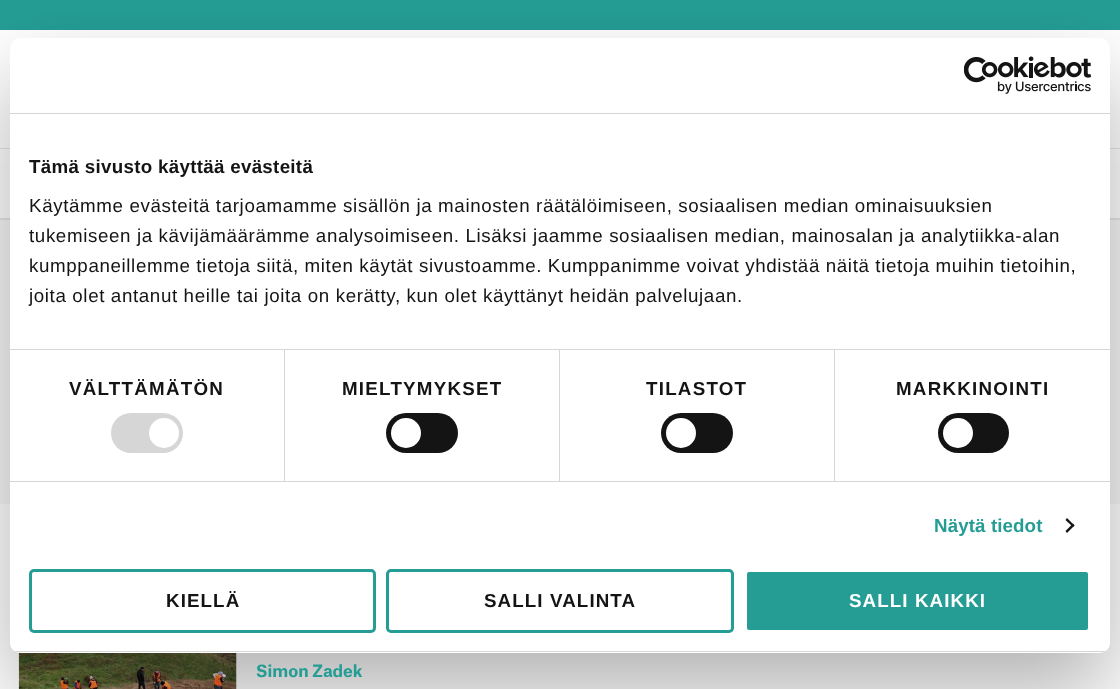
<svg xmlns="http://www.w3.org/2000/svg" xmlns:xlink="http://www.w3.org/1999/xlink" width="1120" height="689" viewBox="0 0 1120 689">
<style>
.cls-1{font:bold 18.75px Liberation Sans;letter-spacing:0.3px;fill:#141414}
.cls-2{font:18.75px Liberation Sans;letter-spacing:0.62px;fill:#141414}
.cls-3{font:bold 18.75px Liberation Sans;letter-spacing:1.25px;fill:#141414}
.cls-4{font:bold 18.75px Liberation Sans;letter-spacing:0.1px;fill:#259d95}
.cls-5{font:bold 18.75px Liberation Sans;letter-spacing:1.1px;fill:#141414}
.cls-6{font:bold 18.75px Liberation Sans;letter-spacing:1.1px;fill:#ffffff}
.cls-7{font:bold 16.25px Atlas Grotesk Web;fill:#259d95}
</style>
<defs>
<clipPath id="clip1"><rect x="10" y="38" width="1100" height="615" rx="10"/></clipPath>
</defs>
<rect width="100%" height="100%" fill="#ffffff"/>
<rect fill="#259d95" x="0" y="0" width="1120" height="30"/>
<rect fill="#e6e6e6" x="0" y="148" width="1120" height="1"/>
<rect fill="#e6e6e6" x="0" y="218" width="1120" height="2"/>
<rect fill="#f7f7f7" x="0" y="220" width="1120" height="284"/>
<image xlink:href="image1.png" x="18" y="652" width="219" height="37"/>
<rect fill="#000000" fill-opacity="0.3" filter="blur(42.5px)" x="10" y="78" width="1100" height="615" rx="10"/>
<rect fill="#ffffff" x="10" y="38" width="1100" height="615" rx="10"/>
<rect fill="#d6d6d6" x="10" y="113" width="1100" height="1"/>
<image xlink:href="image0.png" x="964" y="56" width="127" height="38"/>
<rect fill="#d6d6d6" x="10" y="349" width="1100" height="1"/>
<rect fill="#d6d6d6" x="10" y="481" width="1100" height="1"/>
<rect fill="#d6d6d6" x="284" y="350" width="1" height="131"/>
<rect fill="#d6d6d6" x="111" y="413" width="72" height="40" rx="20"/>
<circle fill="#ffffff" cx="164" cy="433" r="15"/>
<rect fill="#d6d6d6" x="559" y="350" width="1" height="131"/>
<rect fill="#141414" x="386" y="413" width="72" height="40" rx="20"/>
<circle fill="#ffffff" cx="406" cy="433" r="15"/>
<rect fill="#d6d6d6" x="834" y="350" width="1" height="131"/>
<rect fill="#141414" x="661" y="413" width="72" height="40" rx="20"/>
<circle fill="#ffffff" cx="681" cy="433" r="15"/>
<rect fill="#141414" x="938" y="413" width="71" height="40" rx="20"/>
<circle fill="#ffffff" cx="958" cy="433" r="15"/>
<path fill="#141414" d="M1067 518L1074.5 525.5L1073 527L1065.5 520Z"/>
<path fill="#141414" d="M1073 523.5L1074.5 525.5L1067 533L1065.5 531Z"/>
<g clip-path="url(#clip1)">
<rect fill="#d6d6d6" x="10" y="651" width="1100" height="1"/>
</g>
<rect fill="none" stroke="#259d95" stroke-width="3" x="30.5" y="570.5" width="344" height="61" rx="3.5"/>
<rect fill="none" stroke="#259d95" stroke-width="3" x="387.5" y="570.5" width="345" height="61" rx="3.5"/>
<rect fill="#259d95" stroke="#ffffff" stroke-width="3" x="745.5" y="570.5" width="344" height="61" rx="3.5"/>
<text class="cls-1" x="29" y="173">Tämä sivusto käyttää evästeitä</text>
<text class="cls-2"><tspan x="29" y="212">Käytämme evästeitä tarjoamamme sisällön ja mainosten räätälöimiseen, sosiaalisen median ominaisuuksien</tspan><tspan x="29" y="242">tukemiseen ja kävijämäärämme analysoimiseen. Lisäksi jaamme sosiaalisen median, mainosalan ja analytiikka-alan</tspan><tspan x="29" y="272">kumppaneillemme tietoja siitä, miten käytät sivustoamme. Kumppanimme voivat yhdistää näitä tietoja muihin tietoihin,</tspan><tspan x="29" y="302">joita olet antanut heille tai joita on kerätty, kun olet käyttänyt heidän palvelujaan.</tspan></text>
<text class="cls-3" x="69" y="395">VÄLTTÄMÄTÖN</text>
<text class="cls-3" x="342" y="395">MIELTYMYKSET</text>
<text class="cls-3" x="646" y="395">TILASTOT</text>
<text class="cls-3" x="896" y="395">MARKKINOINTI</text>
<text class="cls-4" x="934" y="532">Näytä tiedot</text>
<text class="cls-5" x="166" y="607">KIELLÄ</text>
<text class="cls-5" x="484" y="607">SALLI VALINTA</text>
<text class="cls-6" x="849" y="607">SALLI KAIKKI</text>
<text class="cls-7" x="256" y="677">Simon Zadek</text>
</svg>
